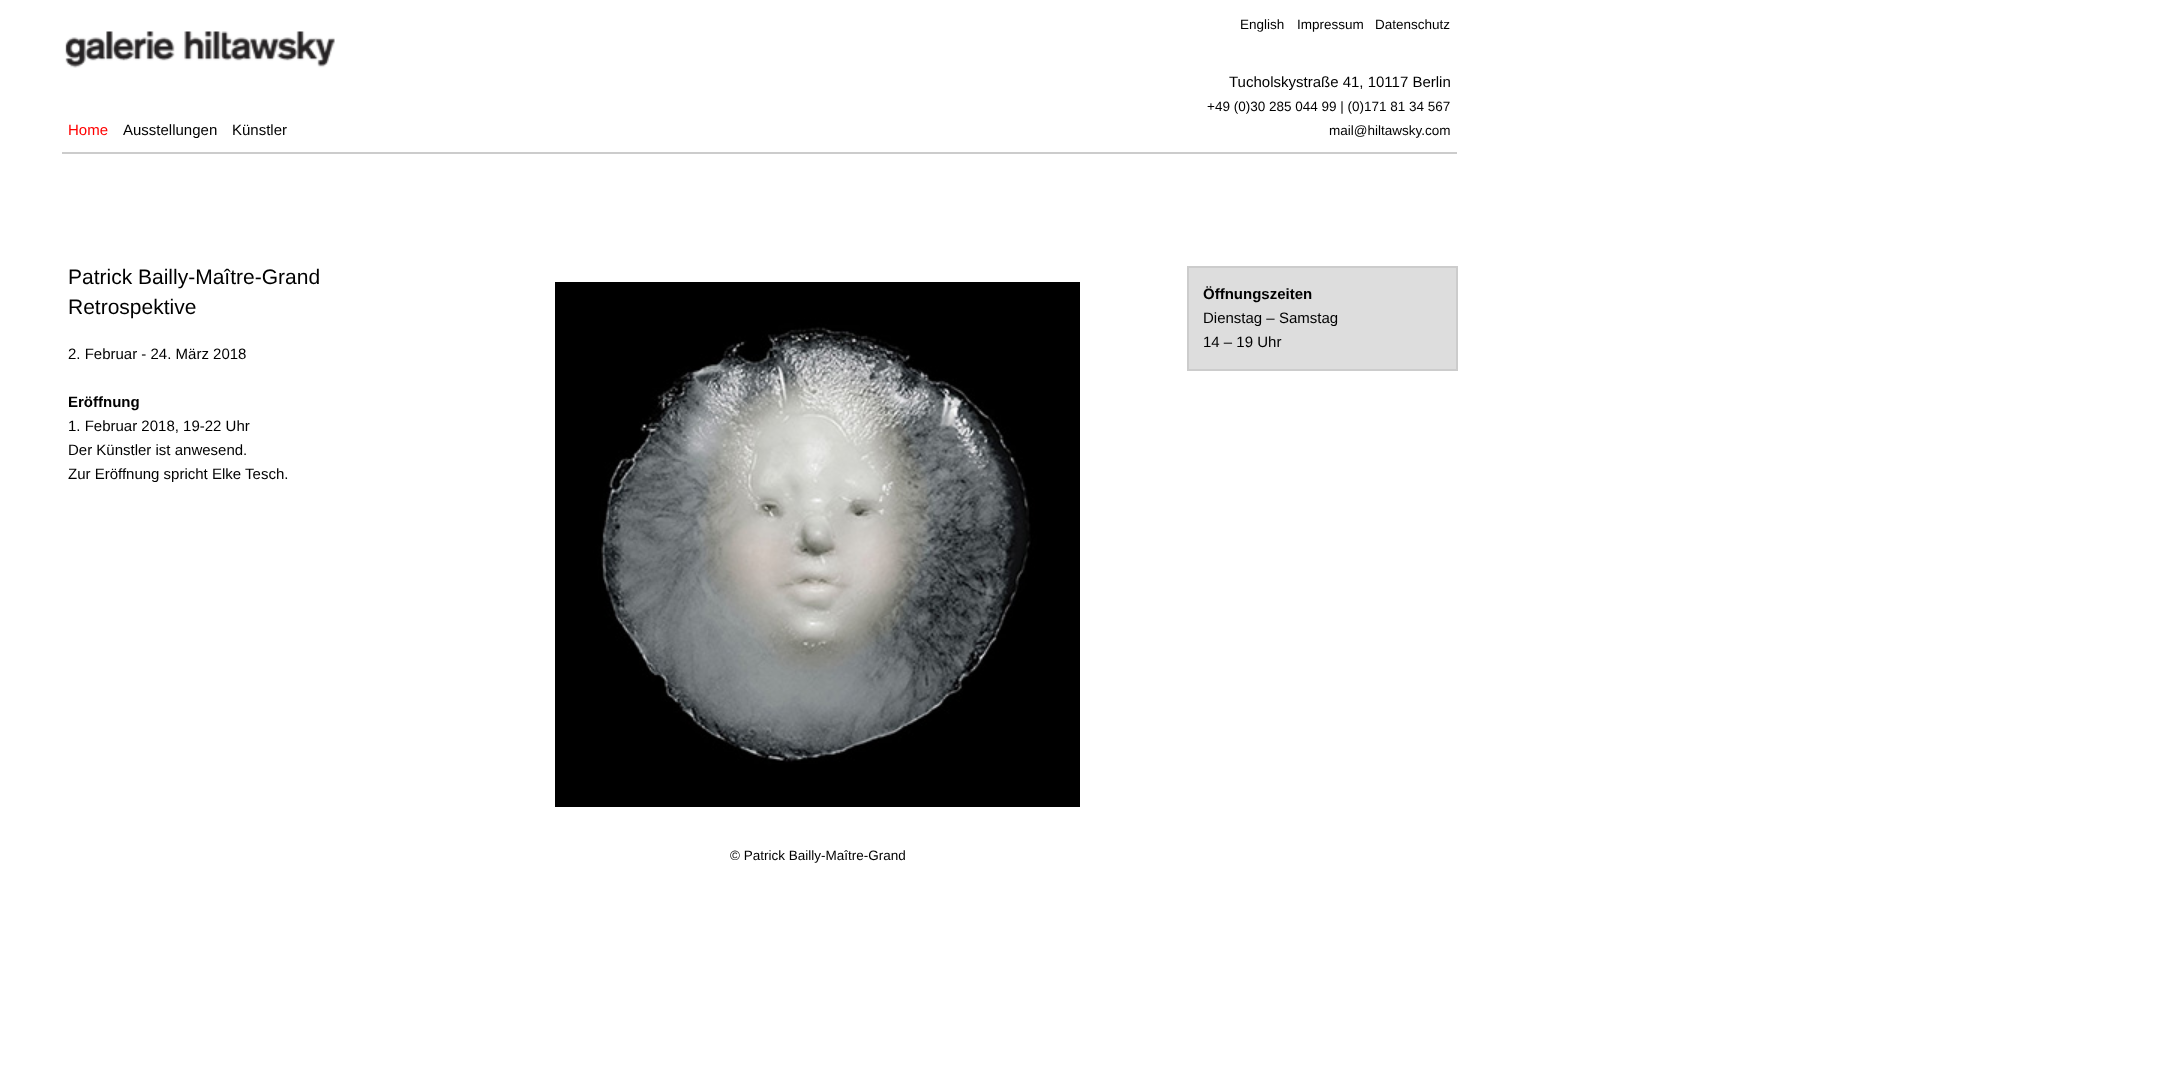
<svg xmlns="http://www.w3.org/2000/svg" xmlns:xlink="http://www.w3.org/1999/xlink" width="2161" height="1084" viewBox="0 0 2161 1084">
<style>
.cls-1{font:13.5px Liberation Sans;fill:#000000}
.cls-2{font:15px Liberation Sans;fill:#ff0000}
.cls-3{font:15px Liberation Sans;fill:#000000}
.cls-4{font:21px Liberation Sans;fill:#000000}
.cls-5{font:bold 15px Liberation Sans;fill:#000000}
</style>
<rect width="100%" height="100%" fill="#ffffff"/>
<image xlink:href="image0.png" x="65" y="31" width="270" height="37"/>
<rect fill="#cccccc" x="62" y="152" width="1395" height="2"/>
<rect fill="#dddddd" stroke="#cccccc" stroke-width="2" x="1188" y="267" width="269" height="103"/>
<image xlink:href="image1.png" x="555" y="282" width="525" height="525"/>
<text class="cls-1" x="1240" y="29">English</text>
<text class="cls-1" x="1297" y="29">Impressum</text>
<text class="cls-1" x="1375" y="29">Datenschutz</text>
<text class="cls-2" x="68" y="135">Home</text>
<text class="cls-3" x="123" y="135">Ausstellungen</text>
<text class="cls-3" x="232" y="135">Künstler</text>
<text class="cls-3" x="1229" y="87">Tucholskystraße 41, 10117 Berlin</text>
<text class="cls-1" x="1207" y="111">+49 (0)30 285 044 99 | (0)171 81 34 567</text>
<text class="cls-1" x="1329" y="135">mail@hiltawsky.com</text>
<text class="cls-4"><tspan x="68" y="284">Patrick Bailly-Maître-Grand</tspan><tspan x="68" y="314">Retrospektive</tspan></text>
<text class="cls-3" x="68" y="359">2. Februar - 24. März 2018</text>
<text class="cls-5" x="68" y="407">Eröffnung</text>
<text class="cls-3"><tspan x="68" y="431">1. Februar 2018, 19-22 Uhr</tspan><tspan x="68" y="455">Der Künstler ist anwesend.</tspan><tspan x="68" y="479">Zur Eröffnung spricht Elke Tesch.</tspan></text>
<text class="cls-5" x="1203" y="299">Öffnungszeiten</text>
<text class="cls-3"><tspan x="1203" y="323">Dienstag – Samstag</tspan><tspan x="1203" y="347">14 – 19 Uhr</tspan></text>
<text class="cls-1" x="730" y="860">© Patrick Bailly-Maître-Grand</text>
</svg>
